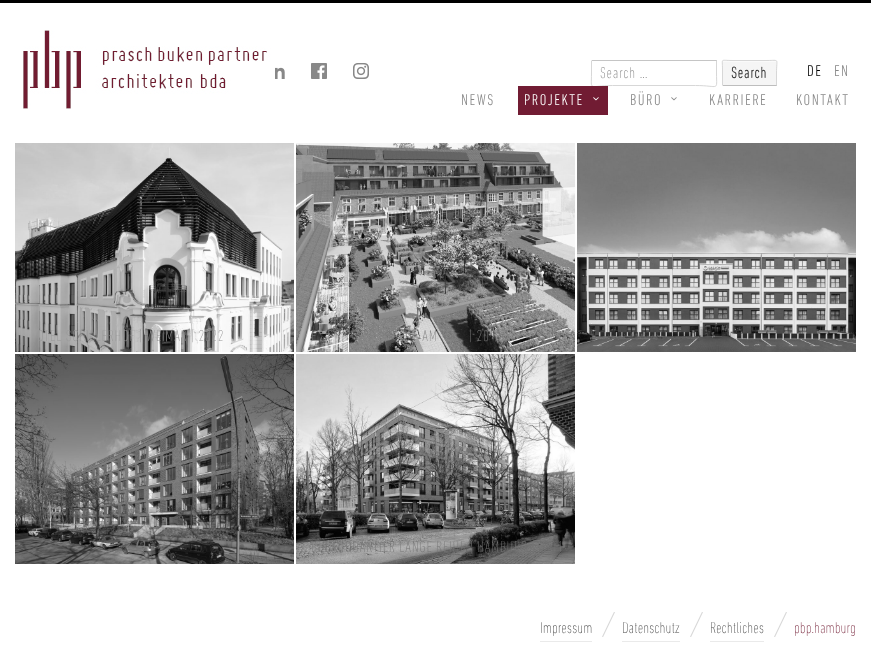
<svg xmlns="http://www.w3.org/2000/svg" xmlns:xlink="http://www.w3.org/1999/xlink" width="871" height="650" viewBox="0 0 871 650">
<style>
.cls-1{font:200 16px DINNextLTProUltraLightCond;letter-spacing:0.75px;fill:#767676}
.cls-2{font:bold 16px DINNextLTProUltraLightCond;letter-spacing:0.75px;fill:#313131}
.cls-3{font:300 16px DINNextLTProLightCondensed;letter-spacing:1.5px;fill:#000000}
.cls-4{font:300 16px DINNextLTProLightCondensed;letter-spacing:1.5px;fill:#888888}
.cls-5{font:300 16px DINNextLTProLightCondensed;letter-spacing:1.5px;fill:#ffffff}
.cls-6{font:200 16px DINNextLTProUltraLightCond;letter-spacing:0.65px;fill:#969696}
.cls-7{font:200 16px DINNextLTProUltraLightCond;letter-spacing:0.65px;fill:#808080}
.cls-8{font:200 16px DINNextLTProUltraLightCond;letter-spacing:0.65px;fill:#5e5e5e}
.cls-9{font:200 16px DINNextLTProUltraLightCond;letter-spacing:0.65px;fill:#767676}
.cls-10{font:200 16px DINNextLTProUltraLightCond;fill:#444444}
.cls-11{font:200 16px DINNextLTProUltraLightCond;fill:#711c33}
</style>
<rect width="100%" height="100%" fill="#ffffff"/>
<rect fill="#000000" x="0" y="0" width="871" height="3"/>
<image xlink:href="image0.png" x="23" y="30" width="252" height="79"/>
<image xlink:href="image1.png" x="275" y="67" width="10" height="12"/>
<image xlink:href="image2.png" x="311" y="63" width="16" height="16"/>
<image xlink:href="image3.png" x="353" y="63" width="16" height="16"/>
<rect fill="#c5c5c5" x="592" y="60" width="125" height="1"/>
<path fill="none" stroke="#d7d7d7" d="M716.5 60.5V73C716.5 92 720 85.5 695.5 85.5H612.5C588 85.5 591.5 92 591.5 73V60.5"/>
<rect fill="#f5f5f5" x="722" y="60" width="55" height="26" rx="1"/>
<rect fill="#fafafa" x="723" y="61" width="53" height="1"/>
<rect fill="#bdbdbd" x="723" y="85" width="54" height="1"/>
<path fill="none" stroke="#d7d7d7" d="M722.5 85.5V69C722.5 58 720 60.5 732 60.5H767C780 60.5 776.5 58 776.5 73V85.5"/>
<rect fill="#711c33" x="518" y="86" width="90" height="29"/>
<image xlink:href="image4.png" x="593" y="97" width="6" height="4"/>
<image xlink:href="image5.png" x="671" y="97" width="6" height="4"/>
<image xlink:href="image6.png" x="15" y="143" width="279" height="209"/>
<image xlink:href="image7.png" x="296" y="143" width="279" height="209"/>
<image xlink:href="image8.png" x="577" y="143" width="279" height="209"/>
<image xlink:href="image9.png" x="15" y="354" width="279" height="210"/>
<image xlink:href="image10.png" x="296" y="354" width="279" height="210"/>
<rect fill="#eaeaea" x="540" y="641" width="52" height="1"/>
<image xlink:href="image11.png" x="602" y="612" width="13" height="25"/>
<rect fill="#eaeaea" x="622" y="641" width="58" height="1"/>
<image xlink:href="image11.png" x="690" y="612" width="13" height="25"/>
<rect fill="#eaeaea" x="710" y="641" width="54" height="1"/>
<image xlink:href="image11.png" x="774" y="612" width="13" height="25"/>
<text class="cls-1" x="600" y="78">Search …</text>
<text class="cls-2" x="731" y="78">Search</text>
<text class="cls-3" x="807" y="76">DE</text>
<text class="cls-4" x="834" y="76">EN</text>
<text class="cls-4" x="461" y="105">NEWS</text>
<text class="cls-5" x="524" y="105">PROJEKTE</text>
<text class="cls-4" x="630" y="105">BÜRO</text>
<text class="cls-4" x="709" y="105">KARRIERE</text>
<text class="cls-4" x="796" y="105">KONTAKT</text>
<text class="cls-6" x="37" y="341">OTEL SCHILLERHOF | WEIMAR | 2022</text>
<text class="cls-7" x="311" y="341">F</text>
<text class="cls-7" x="327" y="341">C</text>
<text class="cls-7" x="422" y="341">AM</text>
<text class="cls-7" x="469" y="341">| 20</text>
<text class="cls-8" x="216" y="534">SS</text>
<text class="cls-9" x="311" y="552">BÜLAUQUARTIER LANGE REIHE | HAMBURG |</text>
<text class="cls-9" x="551" y="552">11</text>
<text class="cls-10" x="540" y="633">Impressum</text>
<text class="cls-10" x="622" y="633">Datenschutz</text>
<text class="cls-10" x="710" y="633">Rechtliches</text>
<text class="cls-11" x="794" y="633">pbp.hamburg</text>
</svg>
